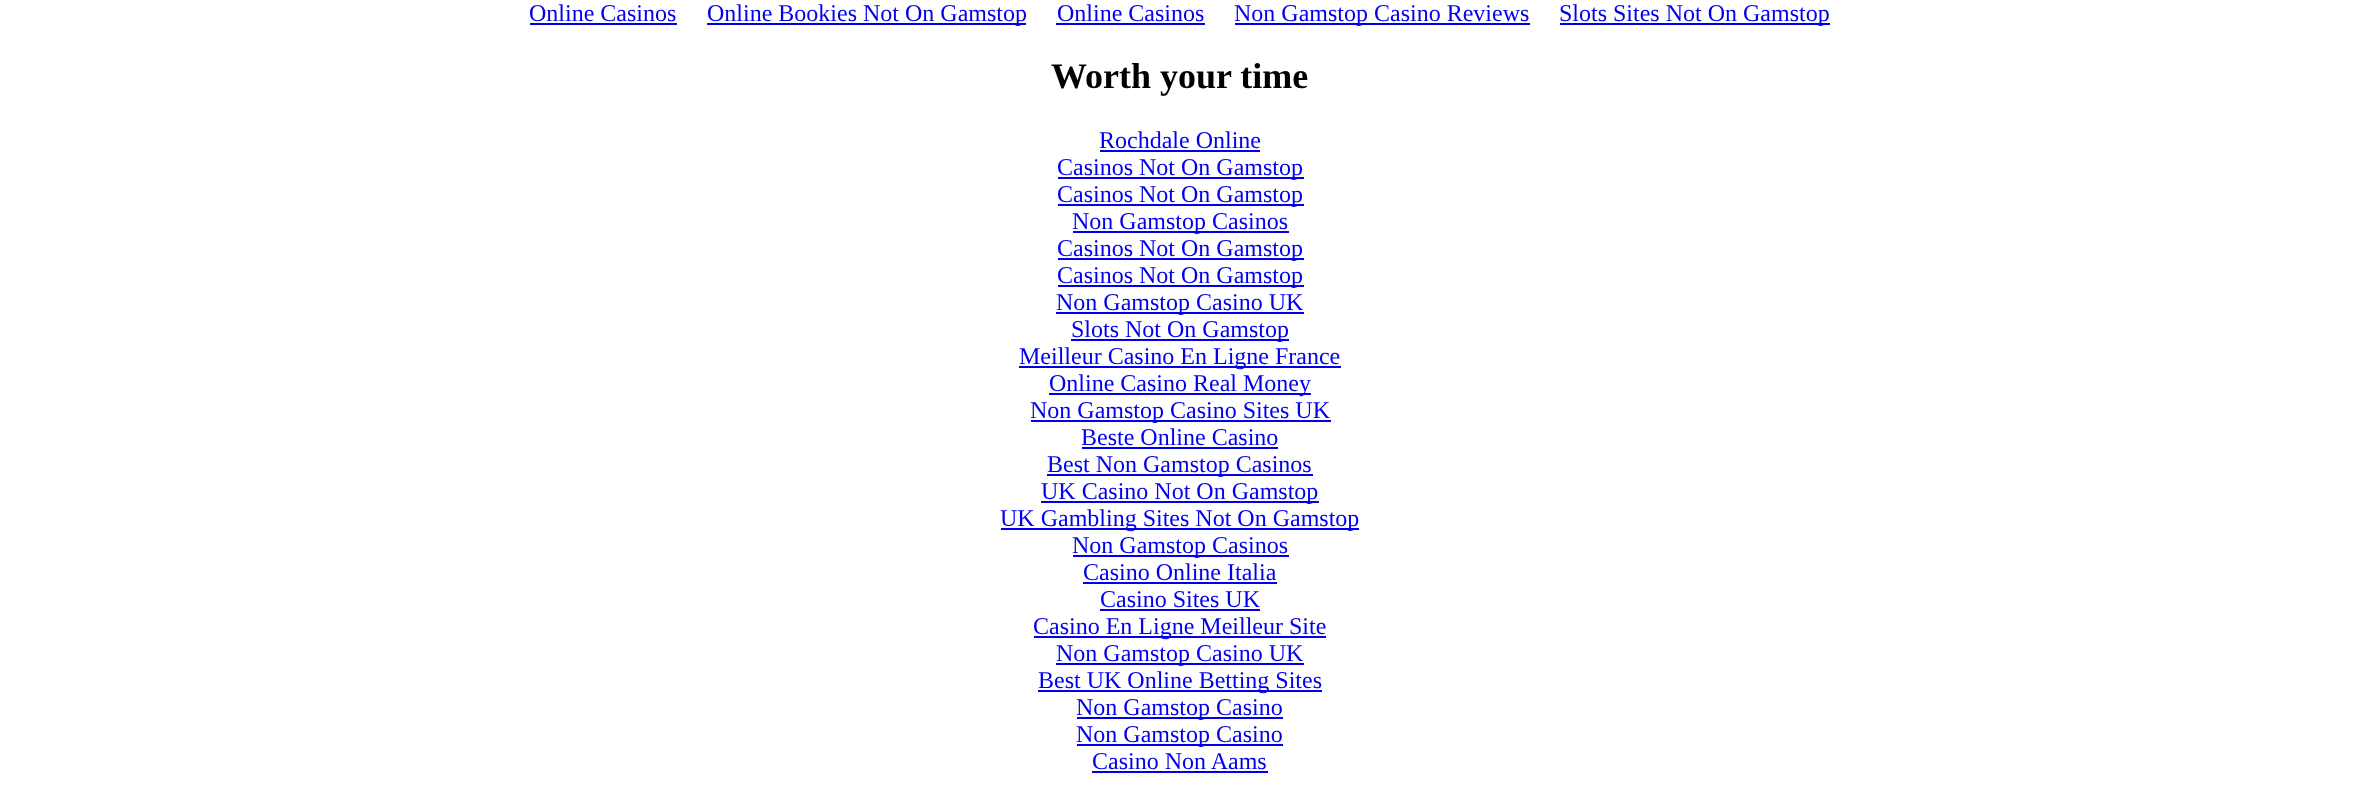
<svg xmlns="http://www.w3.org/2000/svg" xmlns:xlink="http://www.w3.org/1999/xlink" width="2359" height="787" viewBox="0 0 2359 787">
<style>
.cls-1{font:24px Liberation Serif;fill:#0000ee}
.cls-2{font:bold 36px Liberation Serif;fill:#000000}
</style>
<rect width="100%" height="100%" fill="#ffffff"/>
<rect fill="#0000ee" x="530" y="23" width="147" height="2"/>
<rect fill="#0000ee" x="707" y="23" width="319" height="2"/>
<rect fill="#0000ee" x="1056" y="23" width="149" height="2"/>
<rect fill="#0000ee" x="1235" y="23" width="295" height="2"/>
<rect fill="#0000ee" x="1560" y="23" width="270" height="2"/>
<rect fill="#0000ee" x="1100" y="150" width="160" height="2"/>
<rect fill="#0000ee" x="1058" y="177" width="246" height="2"/>
<rect fill="#0000ee" x="1058" y="204" width="246" height="2"/>
<rect fill="#0000ee" x="1073" y="231" width="216" height="2"/>
<rect fill="#0000ee" x="1058" y="258" width="246" height="2"/>
<rect fill="#0000ee" x="1058" y="285" width="246" height="2"/>
<rect fill="#0000ee" x="1056" y="312" width="248" height="2"/>
<rect fill="#0000ee" x="1071" y="339" width="218" height="2"/>
<rect fill="#0000ee" x="1019" y="366" width="322" height="2"/>
<rect fill="#0000ee" x="1049" y="393" width="262" height="2"/>
<rect fill="#0000ee" x="1031" y="420" width="300" height="2"/>
<rect fill="#0000ee" x="1082" y="447" width="196" height="2"/>
<rect fill="#0000ee" x="1047" y="474" width="266" height="2"/>
<rect fill="#0000ee" x="1041" y="501" width="278" height="2"/>
<rect fill="#0000ee" x="1001" y="528" width="358" height="2"/>
<rect fill="#0000ee" x="1073" y="555" width="216" height="2"/>
<rect fill="#0000ee" x="1083" y="582" width="194" height="2"/>
<rect fill="#0000ee" x="1100" y="609" width="160" height="2"/>
<rect fill="#0000ee" x="1034" y="636" width="292" height="2"/>
<rect fill="#0000ee" x="1056" y="663" width="248" height="2"/>
<rect fill="#0000ee" x="1038" y="690" width="284" height="2"/>
<rect fill="#0000ee" x="1077" y="717" width="206" height="2"/>
<rect fill="#0000ee" x="1077" y="744" width="206" height="2"/>
<rect fill="#0000ee" x="1092" y="771" width="176" height="2"/>
<text class="cls-1" x="529" y="21">Online Casinos</text>
<text class="cls-1" x="707" y="21">Online Bookies Not On Gamstop</text>
<text class="cls-1" x="1057" y="21">Online Casinos</text>
<text class="cls-1" x="1234" y="21">Non Gamstop Casino Reviews</text>
<text class="cls-1" x="1559" y="21">Slots Sites Not On Gamstop</text>
<text class="cls-2" x="1051" y="88">Worth your time</text>
<text class="cls-1" x="1099" y="148">Rochdale Online</text>
<text class="cls-1"><tspan x="1057" y="175">Casinos Not On Gamstop</tspan><tspan x="1057" y="202">Casinos Not On Gamstop</tspan></text>
<text class="cls-1" x="1072" y="229">Non Gamstop Casinos</text>
<text class="cls-1"><tspan x="1057" y="256">Casinos Not On Gamstop</tspan><tspan x="1057" y="283">Casinos Not On Gamstop</tspan></text>
<text class="cls-1" x="1056" y="310">Non Gamstop Casino UK</text>
<text class="cls-1" x="1071" y="337">Slots Not On Gamstop</text>
<text class="cls-1" x="1019" y="364">Meilleur Casino En Ligne France</text>
<text class="cls-1" x="1049" y="391">Online Casino Real Money</text>
<text class="cls-1" x="1030" y="418">Non Gamstop Casino Sites UK</text>
<text class="cls-1" x="1081" y="445">Beste Online Casino</text>
<text class="cls-1" x="1047" y="472">Best Non Gamstop Casinos</text>
<text class="cls-1" x="1041" y="499">UK Casino Not On Gamstop</text>
<text class="cls-1" x="1000" y="526">UK Gambling Sites Not On Gamstop</text>
<text class="cls-1" x="1072" y="553">Non Gamstop Casinos</text>
<text class="cls-1" x="1083" y="580">Casino Online Italia</text>
<text class="cls-1" x="1100" y="607">Casino Sites UK</text>
<text class="cls-1" x="1033" y="634">Casino En Ligne Meilleur Site</text>
<text class="cls-1" x="1056" y="661">Non Gamstop Casino UK</text>
<text class="cls-1" x="1038" y="688">Best UK Online Betting Sites</text>
<text class="cls-1"><tspan x="1076" y="715">Non Gamstop Casino</tspan><tspan x="1076" y="742">Non Gamstop Casino</tspan></text>
<text class="cls-1" x="1092" y="769">Casino Non Aams</text>
</svg>
